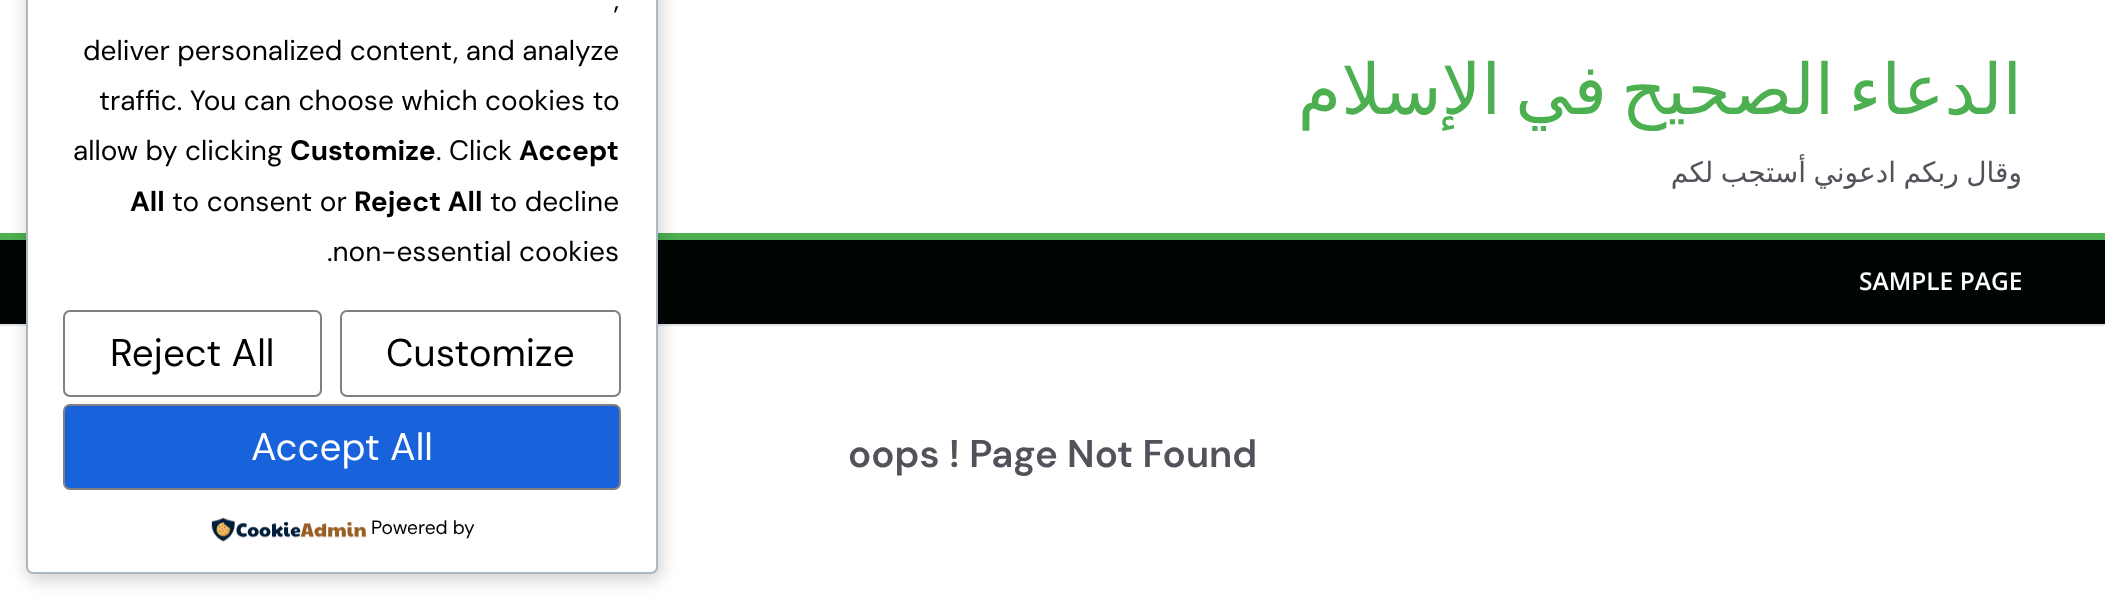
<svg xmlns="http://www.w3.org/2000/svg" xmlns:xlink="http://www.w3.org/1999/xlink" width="2105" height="608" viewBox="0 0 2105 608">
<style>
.cls-1{font:28px DM Sans;fill:#000000}
.cls-2{font:bold 28px DM Sans;fill:#000000}
.cls-3{font:38.5px DM Sans;fill:#000000}
.cls-4{font:38.5px DM Sans;fill:#ffffff}
.cls-5{font:19.25px DM Sans;fill:#000000}
.cls-6{font:70px DejaVu Sans;direction:rtl;fill:#4caf50}
.cls-7{font:28px DejaVu Sans;direction:rtl;fill:#52525b}
.cls-8{font:600 24.5px Open Sans;fill:#ffffff}
.cls-9{font:600 38.5px DM Sans;fill:#52525b}
</style>
<rect width="100%" height="100%" fill="#ffffff"/>
<rect fill="#e4e4e7" x="0" y="324" width="2105" height="2"/>
<rect fill="#000504" x="0" y="240" width="2105" height="84"/>
<rect fill="#4caf50" x="0" y="233" width="2105" height="7"/>
<rect fill="#000000" fill-opacity="0.2" filter="blur(9px)" x="28" y="-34" width="632" height="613" rx="7"/>
<rect fill="#ffffff" stroke="#abb8c3" stroke-width="2" x="27" y="-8" width="630" height="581" rx="6"/>
<rect fill="none" stroke="#808080" stroke-width="2" x="64" y="311" width="257" height="85" rx="6"/>
<rect fill="none" stroke="#808080" stroke-width="2" x="341" y="311" width="279" height="85" rx="6"/>
<rect fill="#1863dc" stroke="#808080" stroke-width="2" x="64" y="405" width="556" height="84" rx="6"/>
<image xlink:href="image0.png" x="211" y="517" width="155" height="25"/>
<text class="cls-1" x="614" y="9">,</text>
<text class="cls-1" x="83" y="60">deliver personalized content, and analyze</text>
<text class="cls-1" x="99" y="110">traffic. You can choose which cookies to</text>
<text class="cls-1" x="73" y="160">allow by clicking</text>
<text class="cls-2" x="290" y="160">Customize</text>
<text class="cls-1" x="436" y="160">. Click</text>
<text class="cls-2" x="519" y="160">Accept</text>
<text class="cls-2" x="130" y="211">All</text>
<text class="cls-1" x="172" y="211">to consent or</text>
<text class="cls-2" x="354" y="211">Reject All</text>
<text class="cls-1" x="490" y="211">to decline</text>
<text class="cls-1" x="327" y="261">.non-essential cookies</text>
<text class="cls-3" x="110" y="366">Reject All</text>
<text class="cls-3" x="386" y="366">Customize</text>
<text class="cls-4" x="251" y="460">Accept All</text>
<text class="cls-5" x="371" y="534">Powered by</text>
<text class="cls-6" x="2022" y="114" word-spacing="-8">الدعاء الصحيح في الإسلام</text>
<text class="cls-7" x="2022" y="182" word-spacing="-1.5">وقال ربكم ادعوني أستجب لكم</text>
<text class="cls-8" x="1859" y="290">SAMPLE PAGE</text>
<text class="cls-9" x="848" y="467">oops ! Page Not Found</text>
</svg>
